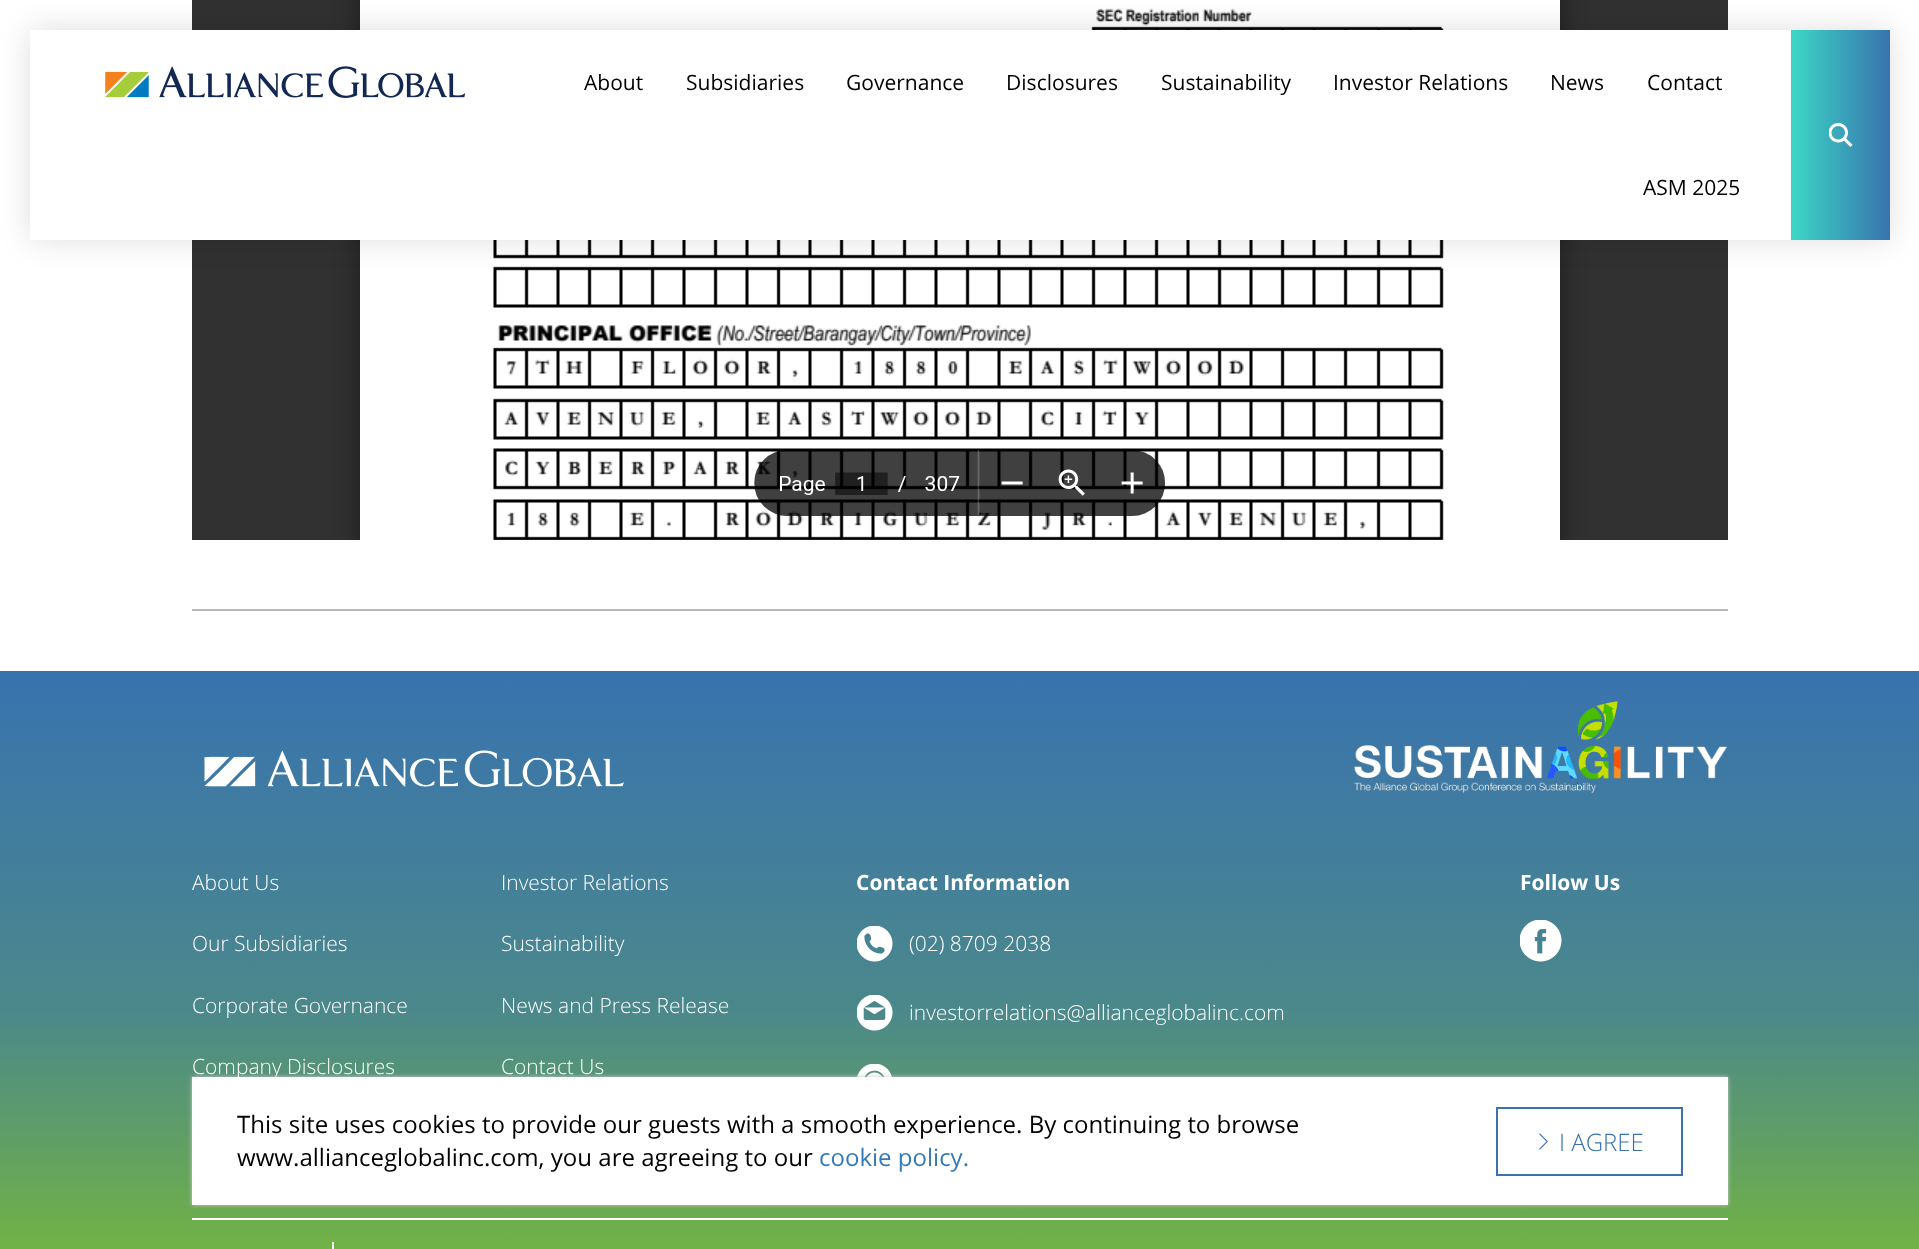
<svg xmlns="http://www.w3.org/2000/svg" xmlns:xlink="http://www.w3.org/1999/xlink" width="1919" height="1249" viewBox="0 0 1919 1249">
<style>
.cls-1{font:21px Open Sans;fill:#000000}
.cls-2{font:300 21px Open Sans;fill:#ffffff}
.cls-3{font:bold 21px Open Sans;fill:#ffffff}
.cls-4{font:24px Open Sans;fill:#000000}
.cls-5{font:24px Open Sans;fill:#337ab7}
.cls-6{font:300 24px Open Sans;fill:#3873af}
</style>
<defs>
<linearGradient id="g1" gradientUnits="userSpaceOnUse" x1="1791" y1="135" x2="1890" y2="135"><stop offset="0" stop-color="#3cd7c6"/><stop offset="1" stop-color="#3873ae"/></linearGradient>
<linearGradient id="g2" gradientUnits="userSpaceOnUse" x1="960" y1="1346" x2="960" y2="671"><stop offset="0" stop-color="#80c32a"/><stop offset="0.5" stop-color="#4b888b"/><stop offset="1" stop-color="#3873af"/></linearGradient>
</defs>
<rect width="100%" height="100%" fill="#ffffff"/>
<image xlink:href="image2.png" x="192" y="0" width="1536" height="540"/>
<rect fill="#000000" fill-opacity="0.13" filter="blur(15px)" x="30" y="30" width="1860" height="210"/>
<rect fill="#ffffff" x="30" y="30" width="1761" height="210"/>
<image xlink:href="image0.png" x="105" y="66" width="360" height="32"/>
<rect fill="url(#g1)" x="1791" y="30" width="99" height="210"/>
<image xlink:href="image1.png" x="1829" y="123" width="24" height="24"/>
<rect fill="#b8b8ba" x="192" y="609" width="1536" height="2"/>
<rect fill="url(#g2)" x="0" y="671" width="1919" height="578"/>
<image xlink:href="image3.png" x="204" y="750" width="420" height="38"/>
<image xlink:href="image4.png" x="1354" y="701" width="374" height="92"/>
<image xlink:href="image5.png" x="857" y="926" width="36" height="36"/>
<image xlink:href="image6.png" x="857" y="995" width="36" height="36"/>
<image xlink:href="image7.png" x="857" y="1064" width="35" height="13"/>
<image xlink:href="image8.png" x="1520" y="920" width="42" height="42"/>
<rect fill="#ffffff" x="192" y="1218" width="1536" height="2"/>
<rect fill="#ffffff" x="332" y="1242" width="2" height="7"/>
<rect fill="#cccccc" filter="blur(2px)" x="192" y="1077" width="1536" height="128"/>
<rect fill="#ffffff" x="192" y="1077" width="1536" height="128"/>
<rect fill="none" stroke="#3873af" stroke-width="2" x="1497" y="1108" width="185" height="67"/>
<image xlink:href="image9.png" x="1539" y="1133" width="9" height="17"/>
<text class="cls-1" x="584" y="90">About</text>
<text class="cls-1" x="686" y="90">Subsidiaries</text>
<text class="cls-1" x="846" y="90">Governance</text>
<text class="cls-1" x="1006" y="90">Disclosures</text>
<text class="cls-1" x="1161" y="90">Sustainability</text>
<text class="cls-1" x="1333" y="90">Investor Relations</text>
<text class="cls-1" x="1550" y="90">News</text>
<text class="cls-1" x="1647" y="90">Contact</text>
<text class="cls-1" x="1643" y="195">ASM 2025</text>
<text class="cls-2" x="192" y="890">About Us</text>
<text class="cls-2" x="192" y="951">Our Subsidiaries</text>
<text class="cls-2" x="192" y="1013">Corporate Governance</text>
<text class="cls-2" x="192" y="1074">Company Disclosures</text>
<text class="cls-2" x="501" y="890">Investor Relations</text>
<text class="cls-2" x="501" y="951">Sustainability</text>
<text class="cls-2" x="501" y="1013">News and Press Release</text>
<text class="cls-2" x="501" y="1074">Contact Us</text>
<text class="cls-3" x="856" y="890">Contact Information</text>
<text class="cls-2" x="909" y="951">(02) 8709 2038</text>
<text class="cls-2" x="909" y="1020">investorrelations@allianceglobalinc.com</text>
<text class="cls-3" x="1520" y="890">Follow Us</text>
<text class="cls-4"><tspan x="237" y="1133">This site uses cookies to provide our guests with a smooth experience. By continuing to browse</tspan><tspan x="237" y="1166">www.allianceglobalinc.com, you are agreeing to our</tspan></text>
<text class="cls-5" x="819" y="1166">cookie policy.</text>
<text class="cls-6" x="1559" y="1151">I AGREE</text>
</svg>
